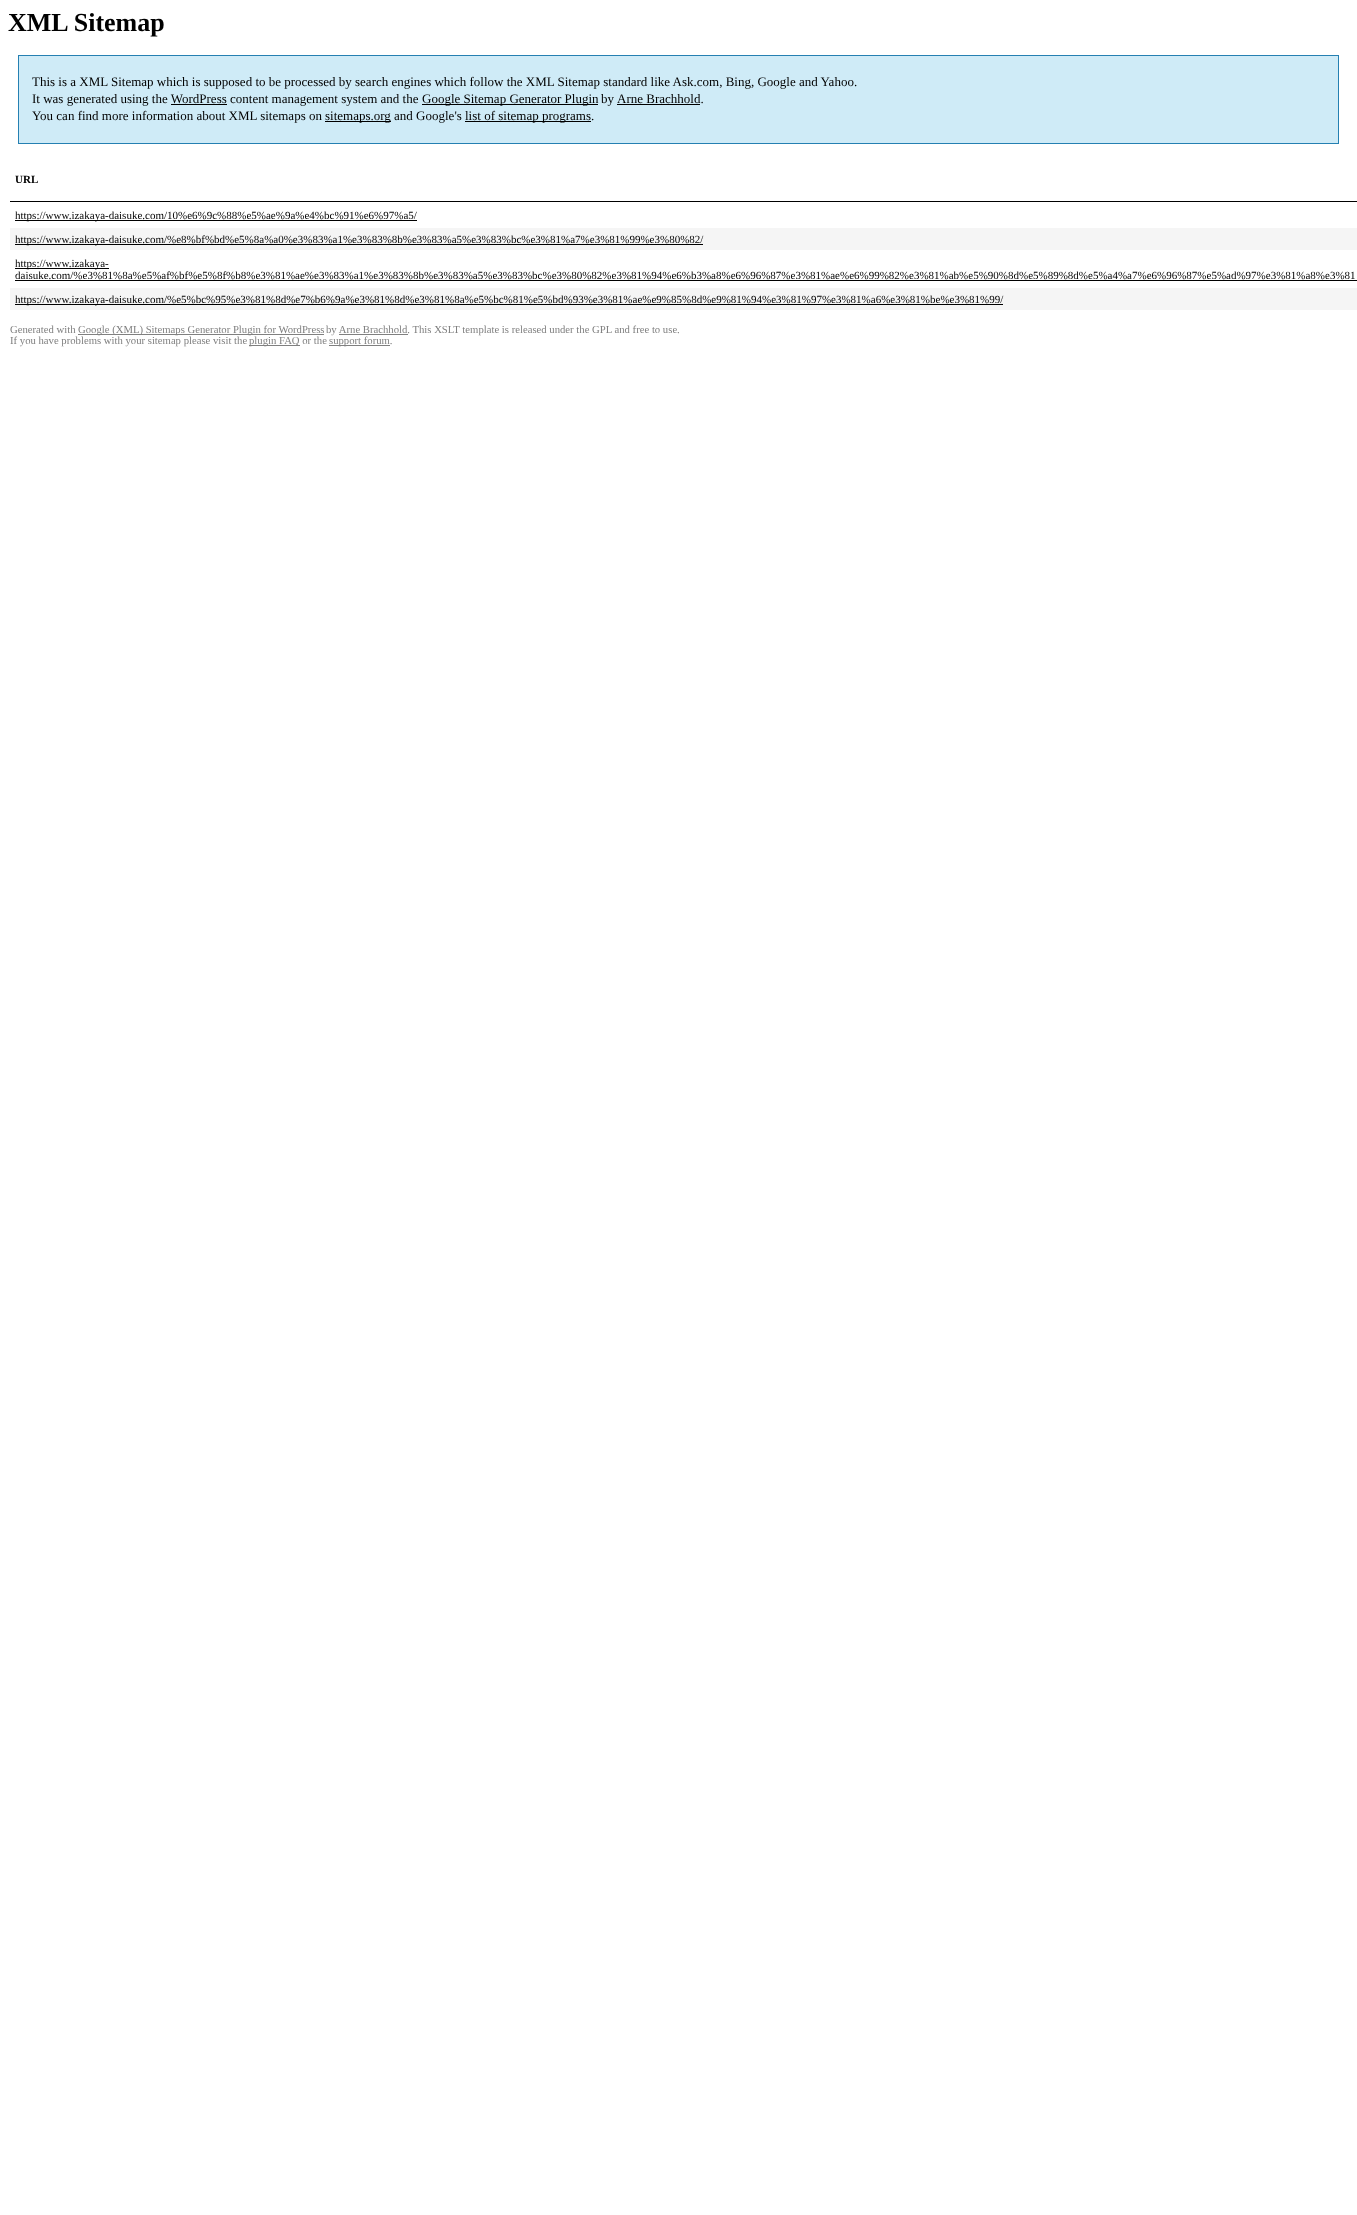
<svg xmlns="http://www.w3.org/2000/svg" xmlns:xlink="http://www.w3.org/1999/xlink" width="1357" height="2215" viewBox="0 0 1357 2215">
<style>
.cls-1{font:bold 26px Liberation Serif;fill:#000000}
.cls-2{font:13px Liberation Serif;fill:#000000}
.cls-3{font:bold 11px Liberation Serif;fill:#000000}
.cls-4{font:11px Liberation Serif;fill:#000000}
.cls-5{font:10.7px Liberation Serif;fill:#808080}
</style>
<rect width="100%" height="100%" fill="#ffffff"/>
<rect fill="#cfebf7" stroke="#2580b2" x="18.5" y="55.5" width="1320" height="88"/>
<rect fill="#000000" x="422" y="104" width="176" height="1"/>
<rect fill="#000000" x="617" y="104" width="83" height="1"/>
<rect fill="#000000" x="171" y="104" width="56" height="1"/>
<rect fill="#000000" x="325" y="121" width="66" height="1"/>
<rect fill="#000000" x="465" y="121" width="126" height="1"/>
<rect fill="#000000" x="10" y="201" width="1347" height="1"/>
<rect fill="#000000" x="15" y="220" width="402" height="1"/>
<rect fill="#f5f5f5" x="10" y="228" width="1347" height="22"/>
<rect fill="#000000" x="15" y="244" width="688" height="1"/>
<rect fill="#000000" x="15" y="268" width="94" height="1"/>
<rect fill="#000000" x="15" y="280" width="1342" height="1"/>
<rect fill="#f5f5f5" x="10" y="288" width="1347" height="22"/>
<rect fill="#000000" x="15" y="304" width="988" height="1"/>
<rect fill="#808080" x="78" y="334" width="246" height="1"/>
<rect fill="#808080" x="339" y="334" width="69" height="1"/>
<rect fill="#808080" x="249" y="345" width="51" height="1"/>
<rect fill="#808080" x="329" y="345" width="61" height="1"/>
<text class="cls-1" x="8" y="31">XML Sitemap</text>
<text class="cls-2"><tspan x="32" y="86">This is a XML Sitemap which is supposed to be processed by search engines which follow the XML Sitemap standard like Ask.com, Bing, Google and Yahoo.</tspan><tspan x="32" y="103">It was generated using the WordPress content management system and the</tspan></text>
<text class="cls-2" x="422" y="103">Google Sitemap Generator Plugin</text>
<text class="cls-2" x="601" y="103">by</text>
<text class="cls-2" x="617" y="103">Arne Brachhold.</text>
<text class="cls-2" x="32" y="120">You can find more information about XML sitemaps on</text>
<text class="cls-2" x="325" y="120">sitemaps.org and Google's</text>
<text class="cls-2" x="465" y="120">list of sitemap programs.</text>
<text class="cls-3" x="15" y="183">URL</text>
<text class="cls-4" x="15" y="219">https://www.izakaya-daisuke.com/10%e6%9c%88%e5%ae%9a%e4%bc%91%e6%97%a5/</text>
<text class="cls-4" x="15" y="243">https://www.izakaya-daisuke.com/%e8%bf%bd%e5%8a%a0%e3%83%a1%e3%83%8b%e3%83%a5%e3%83%bc%e3%81%a7%e3%81%99%e3%80%82/</text>
<text class="cls-4"><tspan x="15" y="267">https://www.izakaya-</tspan><tspan x="15" y="279">daisuke.com/%e3%81%8a%e5%af%bf%e5%8f%b8%e3%81%ae%e3%83%a1%e3%83%8b%e3%83%a5%e3%83%bc%e3%80%82%e3%81%94%e6%b3%a8%e6%96%87%e3%81%ae%e6%99%82%e3%81%ab%e5%90%8d%e5%89%8d%e5%a4%a7%e6%96%87%e5%ad%97%e3%81%a8%e3%81</tspan></text>
<text class="cls-4" x="15" y="303">https://www.izakaya-daisuke.com/%e5%bc%95%e3%81%8d%e7%b6%9a%e3%81%8d%e3%81%8a%e5%bc%81%e5%bd%93%e3%81%ae%e9%85%8d%e9%81%94%e3%81%97%e3%81%a6%e3%81%be%e3%81%99/</text>
<text class="cls-5" x="10" y="333">Generated with</text>
<text class="cls-5" x="78" y="333">Google (XML) Sitemaps Generator Plugin for WordPress</text>
<text class="cls-5" x="326" y="333">by Arne Brachhold. This XSLT template is released under the GPL and free to use.</text>
<text class="cls-5" x="10" y="344">If you have problems with your sitemap please visit the</text>
<text class="cls-5" x="249" y="344">plugin FAQ or the</text>
<text class="cls-5" x="329" y="344">support forum.</text>
</svg>
